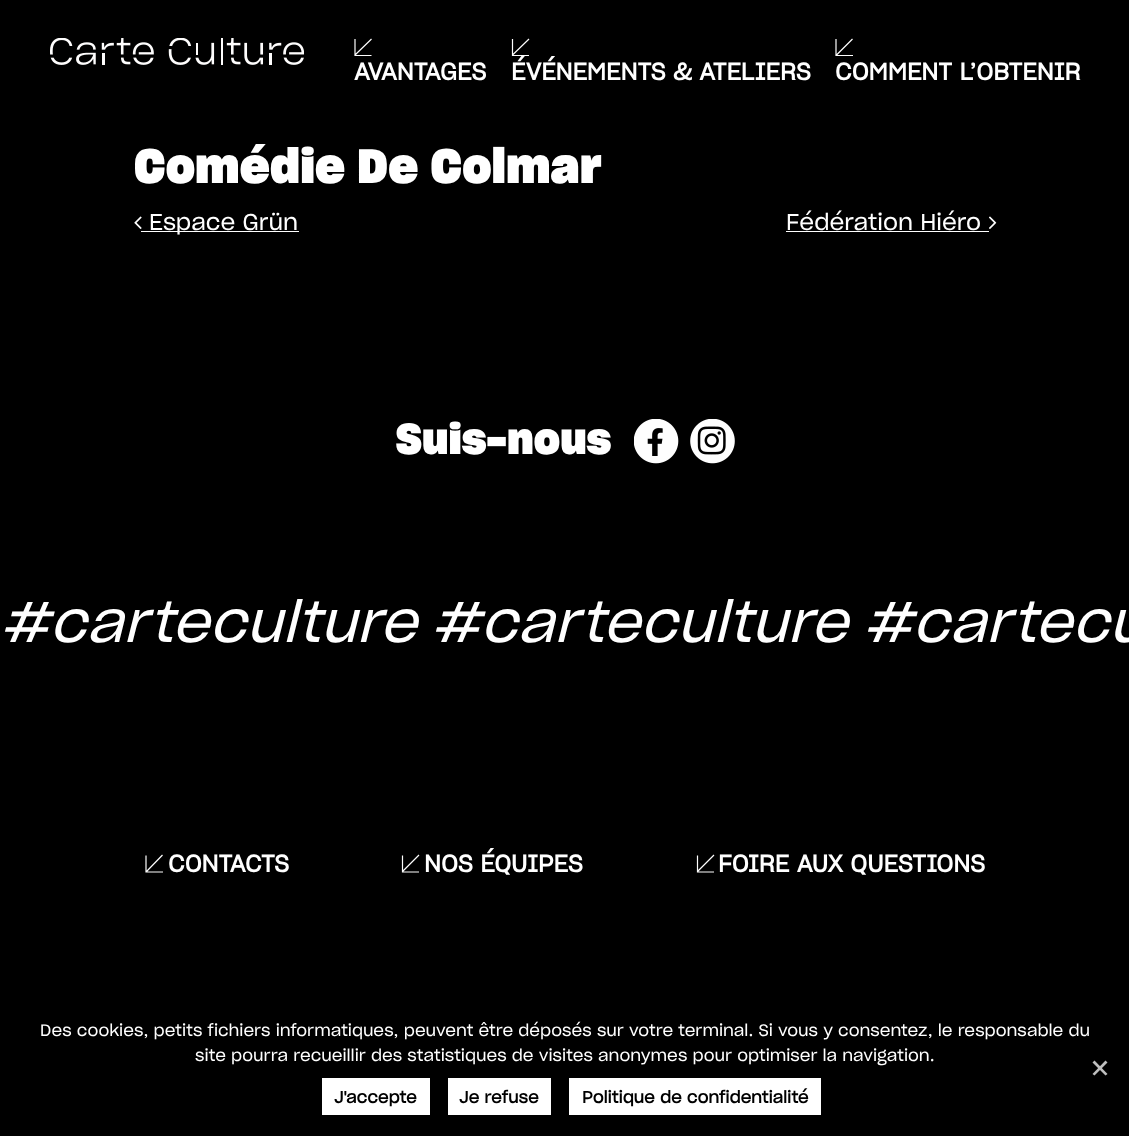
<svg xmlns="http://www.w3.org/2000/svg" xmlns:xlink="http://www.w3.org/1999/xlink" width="1129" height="1136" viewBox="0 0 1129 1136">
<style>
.cls-1{font:bold 23.5px 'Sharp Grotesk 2';fill:#ffffff}
.cls-2{font:bold 46.9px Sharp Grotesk;fill:#ffffff}
.cls-3{font:22.5px Sharp Grotesk;fill:#ffffff}
.cls-4{font:bold 42px Sharp Grotesk;fill:#ffffff}
.cls-5{font:italic 56.25px Sharp Grotesk;fill:#ffffff}
.cls-6{font:16.25px Sharp Grotesk;fill:#ffffff}
.cls-7{font:bold 16.25px 'Sharp Grotesk 2';fill:#000000}
</style>
<defs>
<clipPath id="clip1"><rect x="354" y="38" width="19" height="18"/></clipPath>
<clipPath id="clip2"><rect x="511" y="38" width="19" height="18"/></clipPath>
<clipPath id="clip3"><rect x="835" y="38" width="19" height="18"/></clipPath>
</defs>
<rect width="100%" height="100%" fill="#000000"/>
<image xlink:href="image0.png" x="50" y="38" width="254" height="27"/>
<g clip-path="url(#clip1)">
<path fill="none" stroke="#fefefe" stroke-width="1.2" d="M354.5 55.5H371.5M355 56V39M355 55L371.5 39"/>
</g>
<g clip-path="url(#clip2)">
<path fill="none" stroke="#fefefe" stroke-width="1.2" d="M512 55.5H529M512.5 56V39M512.5 55L529 39"/>
</g>
<g clip-path="url(#clip3)">
<path fill="none" stroke="#fefefe" stroke-width="1.2" d="M835.5 55.5H853M836 56V39M836.5 55L852.5 39"/>
</g>
<image xlink:href="image1.png" x="134" y="216" width="8" height="13"/>
<rect fill="#ffffff" x="141" y="231" width="158" height="1"/>
<rect fill="#ffffff" x="786" y="231" width="203" height="1"/>
<image xlink:href="image2.png" x="989" y="216" width="8" height="13"/>
<image xlink:href="image3.png" x="634" y="419" width="45" height="45"/>
<image xlink:href="image4.png" x="690" y="419" width="45" height="45"/>
<path fill="none" stroke="#fefefe" stroke-width="1.2" d="M145.5 872H163M146 872.5V855.5M146.5 871.5L162.5 855"/>
<path fill="none" stroke="#fefefe" stroke-width="1.2" d="M402 872H419M402.5 872.5V855.5M402.5 871.5L419 855"/>
<path fill="none" stroke="#fefefe" stroke-width="1.2" d="M697 872H714M697.5 872.5V855.5M697.5 871.5L714 855"/>
<path fill="#bfbfbf" d="M1105.5 1060.5L1107.5 1062.5L1094.5 1075.5L1092.5 1074Z"/>
<path fill="#bfbfbf" d="M1092.5 1062.5L1094.5 1060.5L1107.5 1074L1105.5 1075.5Z"/>
<rect fill="#ffffff" x="322" y="1078" width="108" height="37"/>
<rect fill="#ffffff" x="448" y="1078" width="103" height="37"/>
<rect fill="#ffffff" x="569" y="1078" width="252" height="37"/>
<text class="cls-1" x="354" y="80">AVANTAGES</text>
<text class="cls-1" x="511" y="80">ÉVÉNEMENTS &amp; ATELIERS</text>
<text class="cls-1" x="835" y="80">COMMENT L’OBTENIR</text>
<text class="cls-2" x="134" y="183">Comédie De Colmar</text>
<text class="cls-3" x="149" y="230">Espace Grün</text>
<text class="cls-3" x="786" y="230">Fédération Hiéro</text>
<text class="cls-4" x="396" y="454">Suis-nous</text>
<text class="cls-5" x="0" y="642">#carteculture</text>
<text class="cls-5" x="431" y="642">#carteculture</text>
<text class="cls-5" x="863" y="642">#cartecu</text>
<text class="cls-1" x="168" y="872">CONTACTS</text>
<text class="cls-1" x="424" y="872">NOS ÉQUIPES</text>
<text class="cls-1" x="718" y="872">FOIRE AUX QUESTIONS</text>
<text class="cls-6" x="40" y="1036">Des cookies, petits fichiers informatiques, peuvent être déposés sur votre terminal. Si vous y consentez, le responsable du</text>
<text class="cls-6" x="195" y="1061">site pourra recueillir des statistiques de visites anonymes pour optimiser la navigation.</text>
<text class="cls-7" x="334" y="1103">J'accepte</text>
<text class="cls-7" x="459" y="1103">Je refuse</text>
<text class="cls-7" x="582" y="1103">Politique de confidentialité</text>
</svg>
